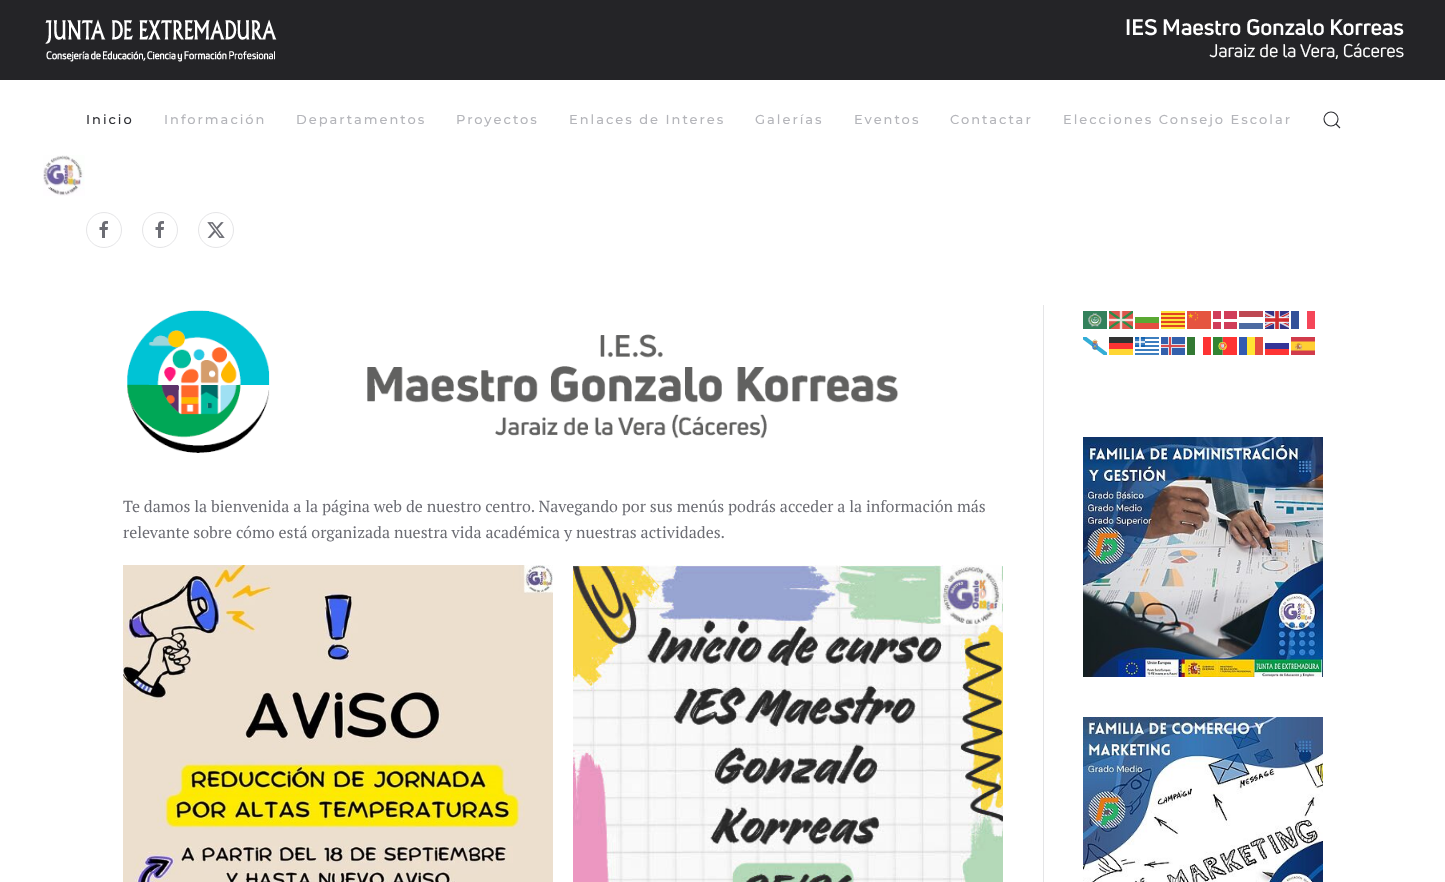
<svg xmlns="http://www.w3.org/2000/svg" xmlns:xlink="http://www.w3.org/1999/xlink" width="1445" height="882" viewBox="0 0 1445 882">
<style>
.cls-1{font:100 13px Montserrat;letter-spacing:2px;fill:#2d2e33}
.cls-2{font:100 13px Montserrat;letter-spacing:2px;fill:#b4b5ba}
.cls-3{font:16px PT Serif;fill:#6c6d74}
</style>
<rect width="100%" height="100%" fill="#ffffff"/>
<rect fill="#242427" x="0" y="0" width="1445" height="80"/>
<image xlink:href="image0.png" x="45" y="19" width="232" height="43"/>
<image xlink:href="image1.png" x="1126" y="19" width="278" height="41"/>
<circle fill="none" stroke="#2d2e33" stroke-width="1.1" cx="1331" cy="119" r="7"/>
<path fill="none" stroke="#2d2e33" stroke-width="1.1" d="M1336 124L1340 128Z"/>
<circle fill="none" stroke="#e5e5e7" cx="104" cy="230" r="17.5"/>
<image xlink:href="image2.png" x="99" y="221" width="9" height="17"/>
<circle fill="none" stroke="#e5e5e7" cx="160" cy="230" r="17.5"/>
<image xlink:href="image2.png" x="155" y="221" width="9" height="17"/>
<circle fill="none" stroke="#e5e5e7" cx="216" cy="230" r="17.5"/>
<image xlink:href="image3.png" x="207" y="222" width="18" height="16"/>
<image xlink:href="image4.png" x="43" y="155" width="42" height="41"/>
<image xlink:href="image5.png" x="127" y="310" width="772" height="143"/>
<image xlink:href="image6.png" x="123" y="565" width="430" height="317"/>
<image xlink:href="image7.png" x="573" y="565" width="430" height="317"/>
<rect fill="#e5e5e7" x="1043" y="305" width="1" height="577"/>
<image xlink:href="image8.png" x="1083" y="311" width="24" height="18"/>
<image xlink:href="image9.png" x="1109" y="311" width="24" height="18"/>
<image xlink:href="image10.png" x="1161" y="311" width="24" height="18"/>
<image xlink:href="image11.png" x="1187" y="311" width="24" height="18"/>
<rect fill="#d13d59" x="1213" y="311" width="24" height="18"/>
<rect fill="#5aa933" x="1135" y="317" width="24" height="6"/>
<rect fill="#ffffff" x="1221" y="311" width="3" height="18"/>
<rect fill="#be4953" x="1239" y="311" width="24" height="6"/>
<image xlink:href="image12.png" x="1265" y="311" width="24" height="18"/>
<rect fill="#335199" x="1291" y="311" width="8" height="18"/>
<rect fill="#f54659" x="1307" y="311" width="8" height="18"/>
<rect fill="#ffffff" x="1213" y="319" width="24" height="3"/>
<rect fill="#e54d40" x="1135" y="323" width="24" height="6"/>
<rect fill="#4d6ba2" x="1239" y="323" width="24" height="6"/>
<image xlink:href="image13.png" x="1083" y="337" width="24" height="18"/>
<rect fill="#333333" x="1109" y="337" width="24" height="6"/>
<image xlink:href="image14.png" x="1135" y="337" width="24" height="18"/>
<image xlink:href="image15.png" x="1161" y="337" width="24" height="18"/>
<rect fill="#337933" x="1187" y="337" width="8" height="18"/>
<rect fill="#fd3333" x="1203" y="337" width="8" height="18"/>
<image xlink:href="image16.png" x="1213" y="337" width="24" height="18"/>
<rect fill="#335ab0" x="1239" y="337" width="8" height="18"/>
<rect fill="#ffe533" x="1247" y="337" width="8" height="18"/>
<rect fill="#e54d40" x="1255" y="337" width="8" height="18"/>
<image xlink:href="image17.png" x="1291" y="337" width="24" height="18"/>
<rect fill="#ff3333" x="1109" y="343" width="24" height="6"/>
<rect fill="#343498" x="1265" y="343" width="24" height="6"/>
<rect fill="#ffd633" x="1109" y="349" width="24" height="6"/>
<rect fill="#fe3434" x="1265" y="349" width="24" height="6"/>
<image xlink:href="image18.png" x="1083" y="437" width="240" height="240"/>
<image xlink:href="image19.png" x="1083" y="717" width="240" height="165"/>
<text class="cls-1" x="86" y="124">Inicio</text>
<text class="cls-2" x="164" y="124">Información</text>
<text class="cls-2" x="296" y="124">Departamentos</text>
<text class="cls-2" x="456" y="124">Proyectos</text>
<text class="cls-2" x="569" y="124">Enlaces de Interes</text>
<text class="cls-2" x="755" y="124">Galerías</text>
<text class="cls-2" x="854" y="124">Eventos</text>
<text class="cls-2" x="950" y="124">Contactar</text>
<text class="cls-2" x="1063" y="124">Elecciones Consejo Escolar</text>
<text class="cls-3"><tspan x="123" y="512">Te damos la bienvenida a la página web de nuestro centro. Navegando por sus menús podrás acceder a la información más</tspan><tspan x="123" y="538">relevante sobre cómo está organizada nuestra vida académica y nuestras actividades.</tspan></text>
</svg>
